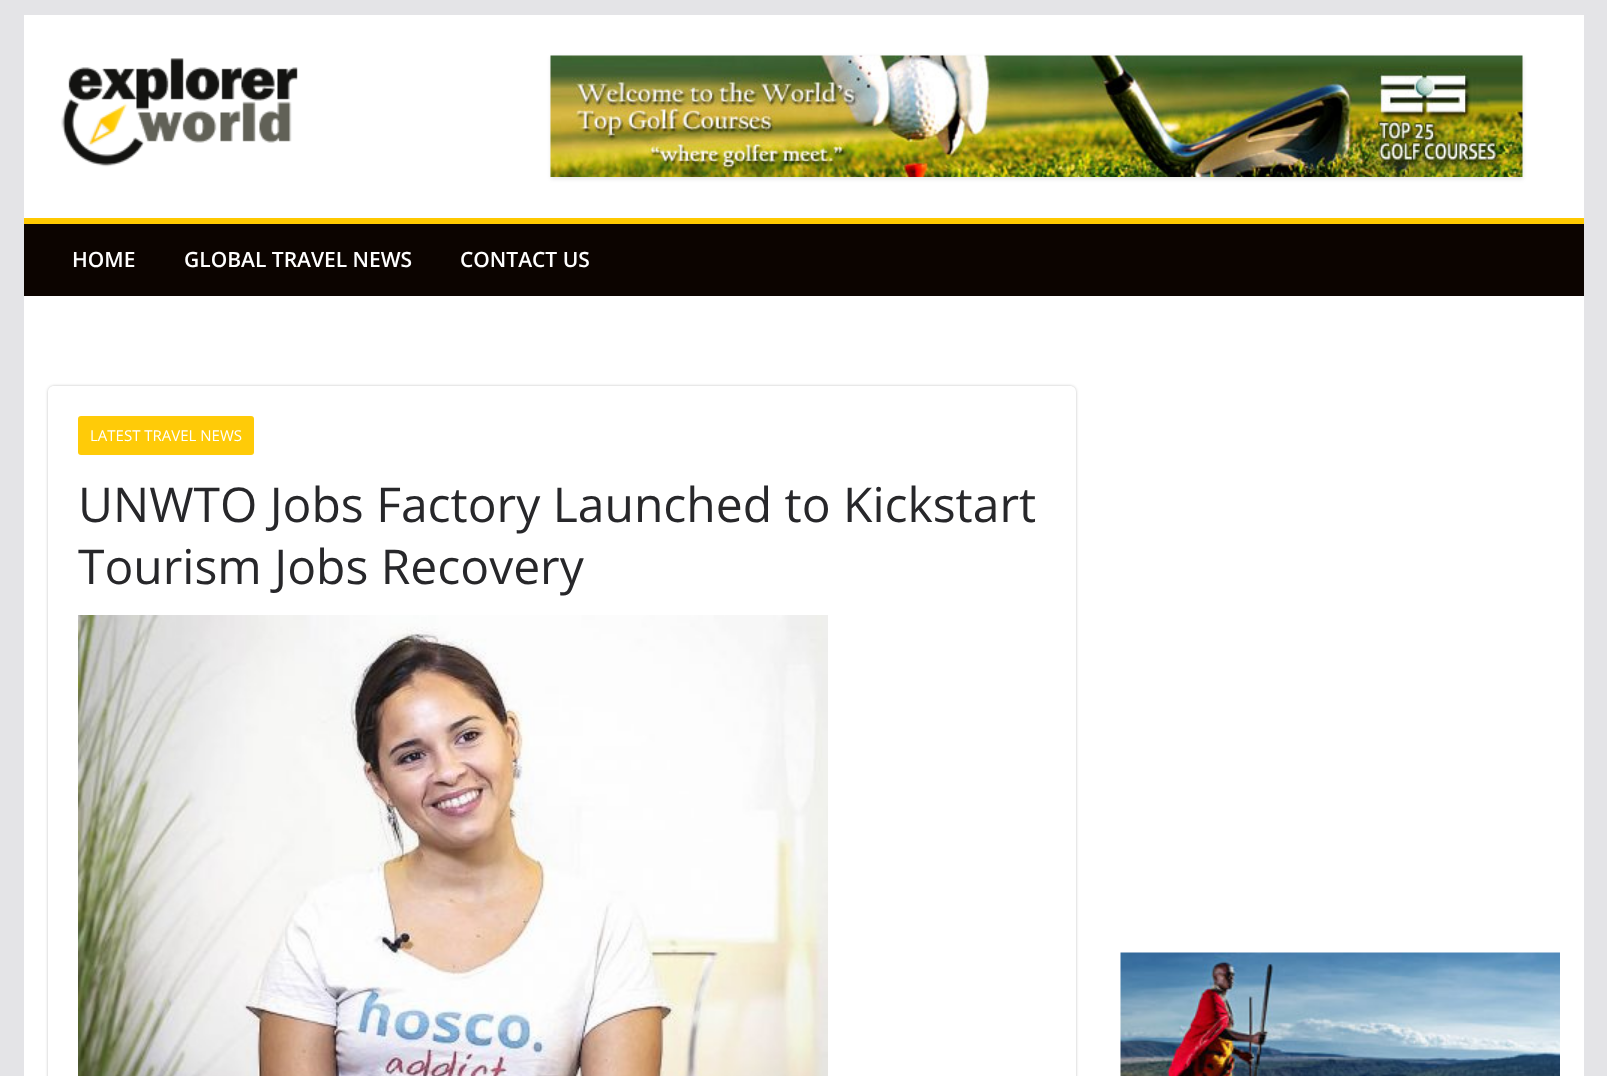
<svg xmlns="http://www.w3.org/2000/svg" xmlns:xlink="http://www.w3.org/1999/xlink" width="1607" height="1076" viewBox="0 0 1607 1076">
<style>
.cls-1{font:600 21px Open Sans;fill:#ffffff}
.cls-2{font:15px Open Sans;fill:#ffffff}
.cls-3{font:48px Open Sans;fill:#27272a}
</style>
<defs>
<clipPath id="clip1"><path d="M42 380H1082V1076H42ZM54 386H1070C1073.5 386 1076 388.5 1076 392V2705C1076 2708.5 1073.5 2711 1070 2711H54C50.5 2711 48 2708.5 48 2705V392C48 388.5 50.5 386 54 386Z" clip-rule="evenodd"/></clipPath>
</defs>
<rect width="100%" height="100%" fill="#e4e4e7"/>
<rect fill="#ffffff" x="24" y="15" width="1560" height="203"/>
<image xlink:href="image0.png" x="61" y="58" width="237" height="109"/>
<rect fill="#000000" fill-opacity="0.1" filter="blur(2px)" x="551" y="57" width="972" height="122"/>
<image xlink:href="image1.png" x="550" y="55" width="973" height="122"/>
<rect fill="#0c0400" x="24" y="224" width="1560" height="72"/>
<rect fill="#ffc900" x="24" y="218" width="1560" height="6"/>
<rect fill="#ffffff" x="24" y="296" width="1560" height="780"/>
<g clip-path="url(#clip1)">
<rect fill="#000000" fill-opacity="0.24" filter="blur(1.5px)" x="48" y="386" width="1028" height="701" rx="6"/>
</g>
<rect fill="#ffcb08" x="78" y="416" width="176" height="39" rx="3"/>
<image xlink:href="image2.png" x="78" y="615" width="750" height="461"/>
<image xlink:href="image3.png" x="1120" y="952" width="440" height="124"/>
<text class="cls-1" x="72" y="267">HOME</text>
<text class="cls-1" x="184" y="267">GLOBAL TRAVEL NEWS</text>
<text class="cls-1" x="460" y="267">CONTACT US</text>
<text class="cls-2" x="90" y="441">LATEST TRAVEL NEWS</text>
<text class="cls-3"><tspan x="78" y="522">UNWTO Jobs Factory Launched to Kickstart</tspan><tspan x="78" y="584">Tourism Jobs Recovery</tspan></text>
</svg>
